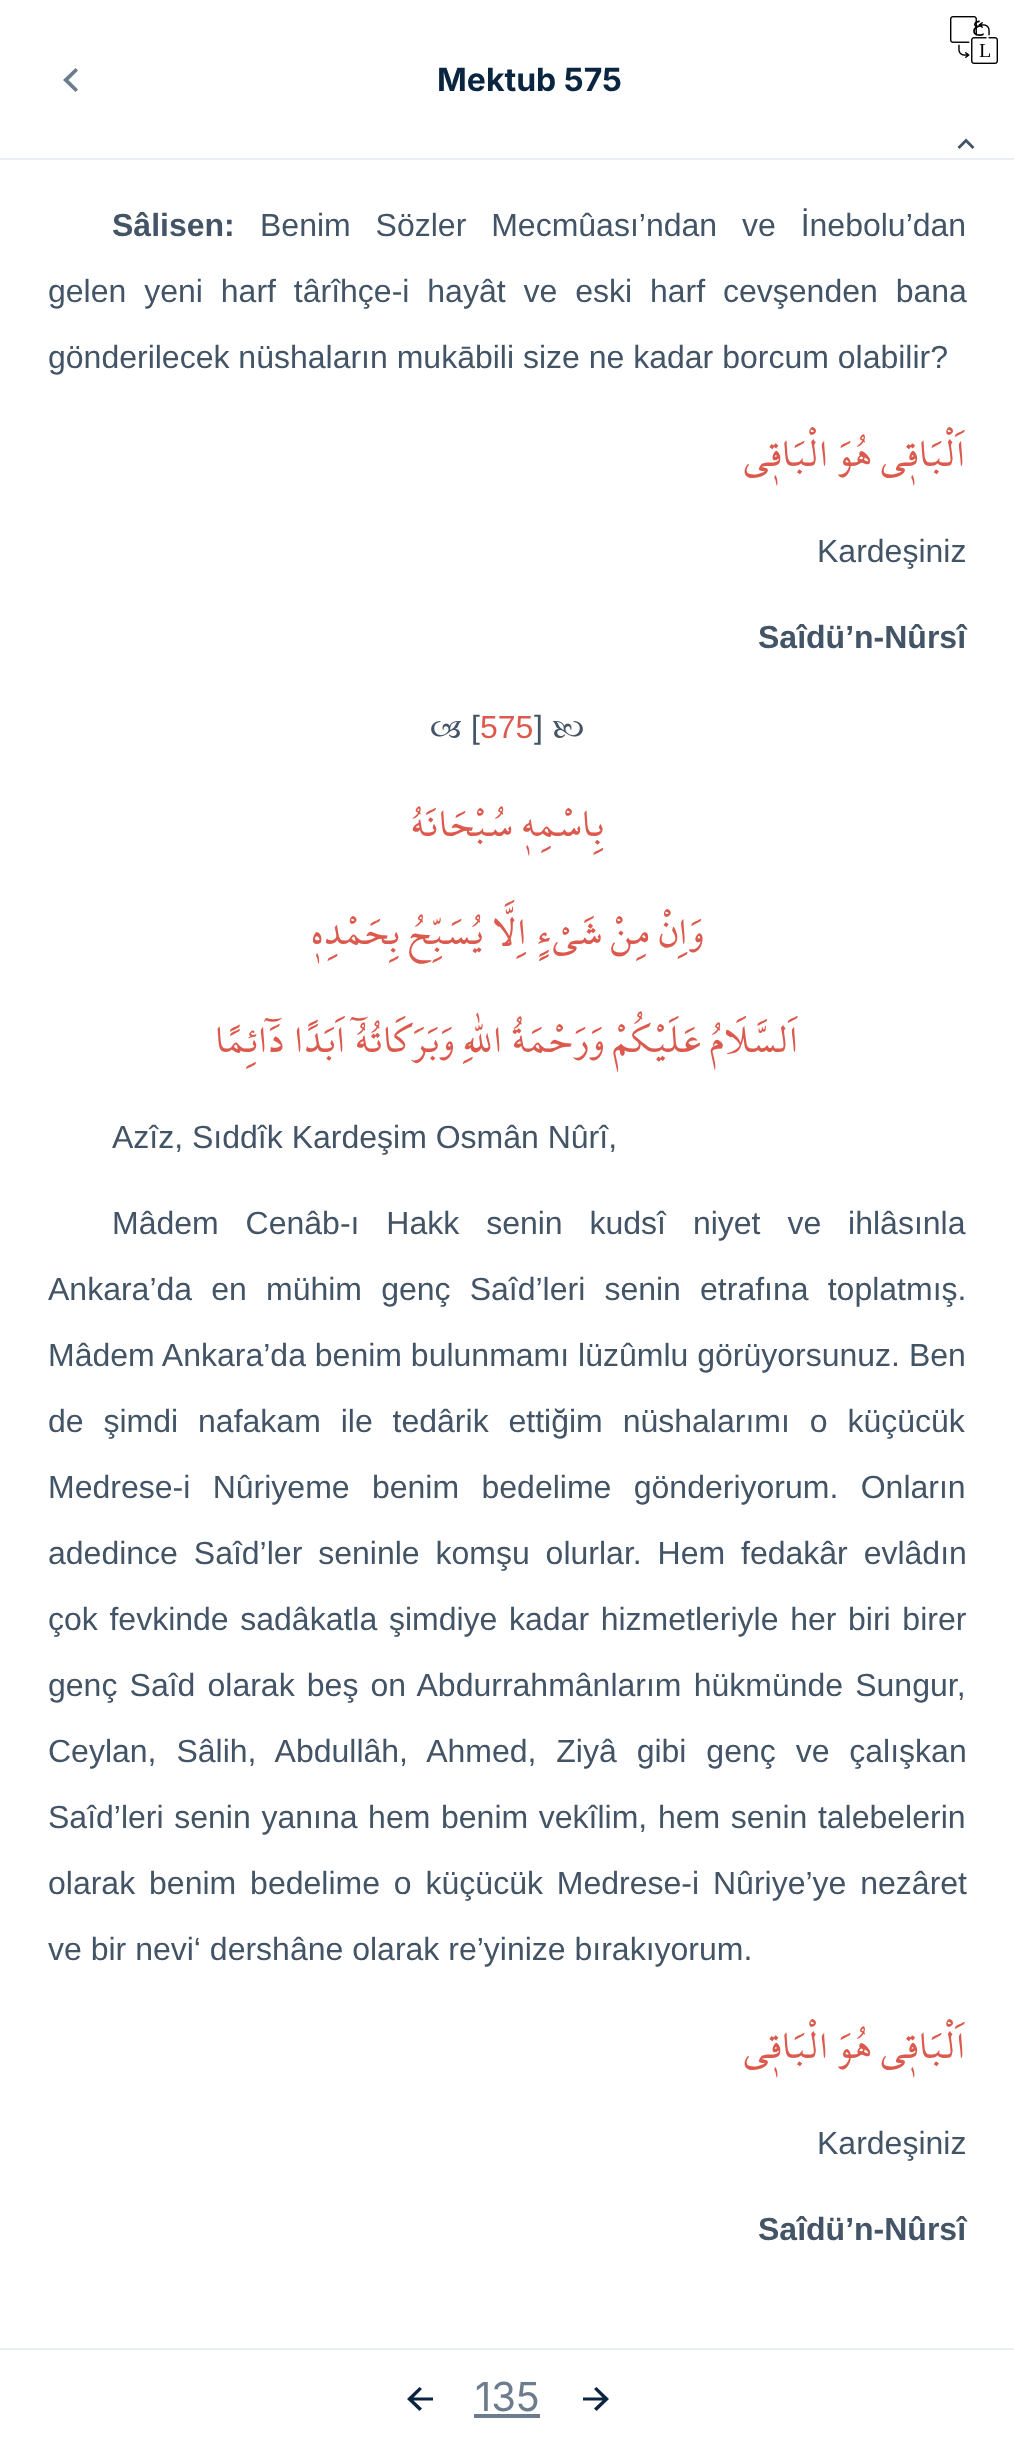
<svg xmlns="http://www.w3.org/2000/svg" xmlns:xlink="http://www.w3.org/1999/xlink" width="1014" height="2444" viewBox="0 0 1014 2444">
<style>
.cls-1{font:20px DejaVu Sans;letter-spacing:3px;direction:rtl;fill:#000000}
.cls-2{font:20px Liberation Serif;letter-spacing:2px;fill:#000000}
.cls-3{font:bold 32px Inter;fill:#0a2540}
.cls-4{font:bold 32px Liberation Sans;fill:#425466}
.cls-5{font:32px Liberation Sans;fill:#425466}
.cls-6{font:44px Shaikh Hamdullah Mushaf;direction:rtl;fill:#dc5a4d}
.cls-7{font:32px Liberation Sans;fill:#dc5a4d}
.cls-8{font:40px Inter;fill:#6c7c8c}
</style>
<rect width="100%" height="100%" fill="#ffffff"/>
<rect fill="#ebeef3" x="0" y="158" width="1014" height="2"/>
<image xlink:href="image0.png" x="950" y="16" width="48" height="48"/>
<path fill="#6c7c8c" d="M68.5 80L78 89.5L75.5 92L63 80L75.5 68L78 70.5Z"/>
<path fill="#425466" d="M966 142.5L959.5 149L957.5 147L966 138.5L974.5 147L972.5 149Z"/>
<image xlink:href="image1.png" x="431" y="721" width="30" height="17"/>
<image xlink:href="image2.png" x="553" y="721" width="30" height="17"/>
<rect fill="#ebeef3" x="0" y="2348" width="1014" height="2"/>
<path fill="#0a2540" fill-rule="evenodd" d="M413.5 2397.5L422 2389L419.5 2387L407 2399L419.5 2411L422 2408.5L413.5 2400.5H433V2397.5Z"/>
<rect fill="#6c7c8c" x="474" y="2414" width="66" height="4"/>
<path fill="#0a2540" fill-rule="evenodd" d="M602.5 2397.5L594 2389L596.5 2387L609 2399L596.5 2411L594 2408.5L602.5 2400.5H583V2397.5Z"/>
<text class="cls-1" x="984" y="31">ع</text>
<text class="cls-2" x="979" y="57">L</text>
<text class="cls-3" x="437" y="91">Mektub 575</text>
<text class="cls-4" x="112" y="236">Sâlisen:</text>
<text class="cls-5" x="260" y="236" word-spacing="16">Benim Sözler Mecmûası’ndan ve İnebolu’dan</text>
<text class="cls-5" x="48" y="302" word-spacing="9">gelen yeni harf târîhçe-i hayât ve eski harf cevşenden bana</text>
<text class="cls-5" x="48" y="368">gönderilecek nüshaların mukābili size ne kadar borcum olabilir?</text>
<text class="cls-6" x="966" y="466">اَلْبَاق۪ي هُوَ الْبَاق۪ي</text>
<text class="cls-5" x="817" y="562">Kardeşiniz</text>
<text class="cls-4" x="758" y="648">Saîdü’n-Nûrsî</text>
<text class="cls-5" x="471" y="738">[</text>
<text class="cls-7" x="480" y="738">575</text>
<text class="cls-5" x="534" y="738">]</text>
<text class="cls-6" x="604" y="836">بِاسْمِه۪ سُبْحَانَهُ</text>
<text class="cls-6" x="703" y="944">وَاِنْ مِنْ شَيْءٍ اِلَّا يُسَبِّحُ بِحَمْدِه۪</text>
<text class="cls-6" x="799" y="1052">اَلسَّلَامُ عَلَيْكُمْ وَرَحْمَةُ اللّٰهِ وَبَرَكَاتُهُٓ اَبَدًا دَٓائِمًا</text>
<text class="cls-5" x="112" y="1148">Azîz, Sıddîk Kardeşim Osmân Nûrî,</text>
<text class="cls-5" x="112" y="1234" word-spacing="18">Mâdem Cenâb-ı Hakk senin kudsî niyet ve ihlâsınla</text>
<text class="cls-5" x="48" y="1300" word-spacing="10.25">Ankara’da en mühim genç Saîd’leri senin etrafına toplatmış.</text>
<text class="cls-5" x="48" y="1366">Mâdem Ankara’da benim bulunmamı lüzûmlu görüyorsunuz. Ben</text>
<text class="cls-5" x="48" y="1432" word-spacing="11">de şimdi nafakam ile tedârik ettiğim nüshalarımı o küçücük</text>
<text class="cls-5" x="48" y="1498" word-spacing="13.5">Medrese-i Nûriyeme benim bedelime gönderiyorum. Onların</text>
<text class="cls-5" x="48" y="1564" word-spacing="7">adedince Saîd’ler seninle komşu olurlar. Hem fedakâr evlâdın</text>
<text class="cls-5" x="48" y="1630" word-spacing="2.75">çok fevkinde sadâkatla şimdiye kadar hizmetleriyle her biri birer</text>
<text class="cls-5" x="48" y="1696" word-spacing="3.25">genç Saîd olarak beş on Abdurrahmânlarım hükmünde Sungur,</text>
<text class="cls-5" x="48" y="1762" word-spacing="11">Ceylan, Sâlih, Abdullâh, Ahmed, Ziyâ gibi genç ve çalışkan</text>
<text class="cls-5" x="48" y="1828" word-spacing="1.75">Saîd’leri senin yanına hem benim vekîlim, hem senin talebelerin</text>
<text class="cls-5" x="48" y="1894" word-spacing="5">olarak benim bedelime o küçücük Medrese-i Nûriye’ye nezâret</text>
<text class="cls-5" x="48" y="1960">ve bir nevi‘ dershâne olarak re’yinize bırakıyorum.</text>
<text class="cls-6" x="966" y="2058">اَلْبَاق۪ي هُوَ الْبَاق۪ي</text>
<text class="cls-5" x="817" y="2154">Kardeşiniz</text>
<text class="cls-4" x="758" y="2240">Saîdü’n-Nûrsî</text>
<text class="cls-8" x="475" y="2411">135</text>
</svg>
